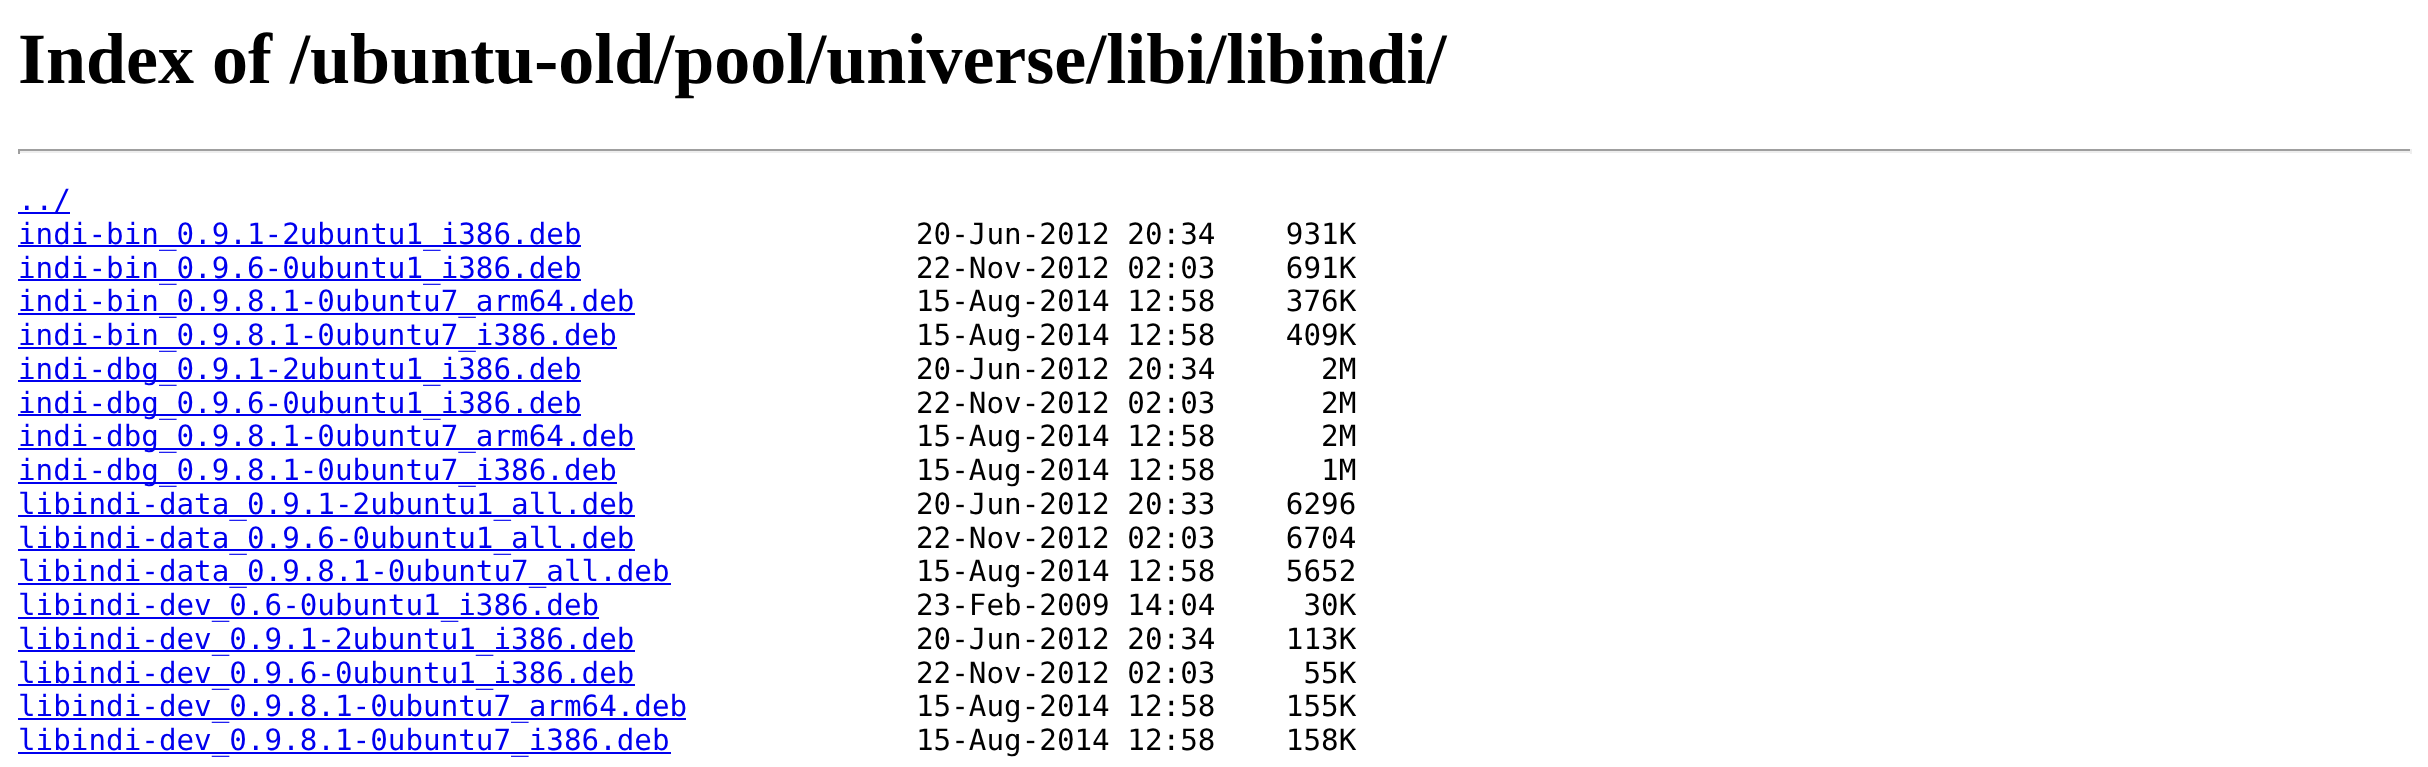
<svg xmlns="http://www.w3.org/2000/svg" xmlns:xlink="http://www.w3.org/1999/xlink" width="2428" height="767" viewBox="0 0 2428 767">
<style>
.cls-1{font:bold 72px Liberation Serif;fill:#000000}
.cls-2{font:29.25px DejaVu Sans Mono;fill:#0000ee}
.cls-3{font:29.25px DejaVu Sans Mono;fill:#000000}
</style>
<rect width="100%" height="100%" fill="#ffffff"/>
<rect fill="#9f9f9f" x="18" y="149" width="2394" height="2"/>
<rect fill="#eeeeee" x="2410" y="149" width="2" height="5"/>
<rect fill="#eeeeee" x="18" y="151" width="2394" height="2"/>
<rect fill="#9f9f9f" x="18" y="149" width="2" height="5"/>
<rect fill="#0000ee" x="18" y="212" width="52" height="2"/>
<rect fill="#0000ee" x="18" y="245" width="563" height="2"/>
<rect fill="#0000ee" x="18" y="279" width="563" height="2"/>
<rect fill="#0000ee" x="18" y="313" width="617" height="2"/>
<rect fill="#0000ee" x="18" y="347" width="599" height="2"/>
<rect fill="#0000ee" x="18" y="380" width="563" height="2"/>
<rect fill="#0000ee" x="18" y="414" width="563" height="2"/>
<rect fill="#0000ee" x="18" y="448" width="617" height="2"/>
<rect fill="#0000ee" x="18" y="482" width="599" height="2"/>
<rect fill="#0000ee" x="18" y="515" width="617" height="2"/>
<rect fill="#0000ee" x="18" y="549" width="617" height="2"/>
<rect fill="#0000ee" x="18" y="583" width="653" height="2"/>
<rect fill="#0000ee" x="18" y="617" width="581" height="2"/>
<rect fill="#0000ee" x="18" y="650" width="617" height="2"/>
<rect fill="#0000ee" x="18" y="684" width="617" height="2"/>
<rect fill="#0000ee" x="18" y="718" width="668" height="2"/>
<rect fill="#0000ee" x="18" y="752" width="653" height="2"/>
<text class="cls-1" x="18" y="83">Index of /ubuntu-old/pool/universe/libi/libindi/</text>
<text class="cls-2"><tspan x="18" y="210">../</tspan><tspan x="18" y="244">indi-bin_0.9.1-2ubuntu1_i386.deb</tspan></text>
<text class="cls-3" xml:space="preserve" x="916" y="244">20-Jun-2012 20:34    931K</text>
<text class="cls-2" x="18" y="278">indi-bin_0.9.6-0ubuntu1_i386.deb</text>
<text class="cls-3" xml:space="preserve" x="916" y="278">22-Nov-2012 02:03    691K</text>
<text class="cls-2" x="18" y="311">indi-bin_0.9.8.1-0ubuntu7_arm64.deb</text>
<text class="cls-3" xml:space="preserve" x="916" y="311">15-Aug-2014 12:58    376K</text>
<text class="cls-2" x="18" y="345">indi-bin_0.9.8.1-0ubuntu7_i386.deb</text>
<text class="cls-3" xml:space="preserve" x="916" y="345">15-Aug-2014 12:58    409K</text>
<text class="cls-2" x="18" y="379">indi-dbg_0.9.1-2ubuntu1_i386.deb</text>
<text class="cls-3" xml:space="preserve" x="916" y="379">20-Jun-2012 20:34      2M</text>
<text class="cls-2" x="18" y="413">indi-dbg_0.9.6-0ubuntu1_i386.deb</text>
<text class="cls-3" xml:space="preserve" x="916" y="413">22-Nov-2012 02:03      2M</text>
<text class="cls-2" x="18" y="446">indi-dbg_0.9.8.1-0ubuntu7_arm64.deb</text>
<text class="cls-3" xml:space="preserve" x="916" y="446">15-Aug-2014 12:58      2M</text>
<text class="cls-2" x="18" y="480">indi-dbg_0.9.8.1-0ubuntu7_i386.deb</text>
<text class="cls-3" xml:space="preserve" x="916" y="480">15-Aug-2014 12:58      1M</text>
<text class="cls-2" x="18" y="514">libindi-data_0.9.1-2ubuntu1_all.deb</text>
<text class="cls-3" xml:space="preserve" x="916" y="514">20-Jun-2012 20:33    6296</text>
<text class="cls-2" x="18" y="548">libindi-data_0.9.6-0ubuntu1_all.deb</text>
<text class="cls-3" xml:space="preserve" x="916" y="548">22-Nov-2012 02:03    6704</text>
<text class="cls-2" x="18" y="581">libindi-data_0.9.8.1-0ubuntu7_all.deb</text>
<text class="cls-3" xml:space="preserve" x="916" y="581">15-Aug-2014 12:58    5652</text>
<text class="cls-2" x="18" y="615">libindi-dev_0.6-0ubuntu1_i386.deb</text>
<text class="cls-3" xml:space="preserve" x="916" y="615">23-Feb-2009 14:04     30K</text>
<text class="cls-2" x="18" y="649">libindi-dev_0.9.1-2ubuntu1_i386.deb</text>
<text class="cls-3" xml:space="preserve" x="916" y="649">20-Jun-2012 20:34    113K</text>
<text class="cls-2" x="18" y="683">libindi-dev_0.9.6-0ubuntu1_i386.deb</text>
<text class="cls-3" xml:space="preserve" x="916" y="683">22-Nov-2012 02:03     55K</text>
<text class="cls-2" x="18" y="716">libindi-dev_0.9.8.1-0ubuntu7_arm64.deb</text>
<text class="cls-3" xml:space="preserve" x="916" y="716">15-Aug-2014 12:58    155K</text>
<text class="cls-2" x="18" y="750">libindi-dev_0.9.8.1-0ubuntu7_i386.deb</text>
<text class="cls-3" xml:space="preserve" x="916" y="750">15-Aug-2014 12:58    158K</text>
</svg>
